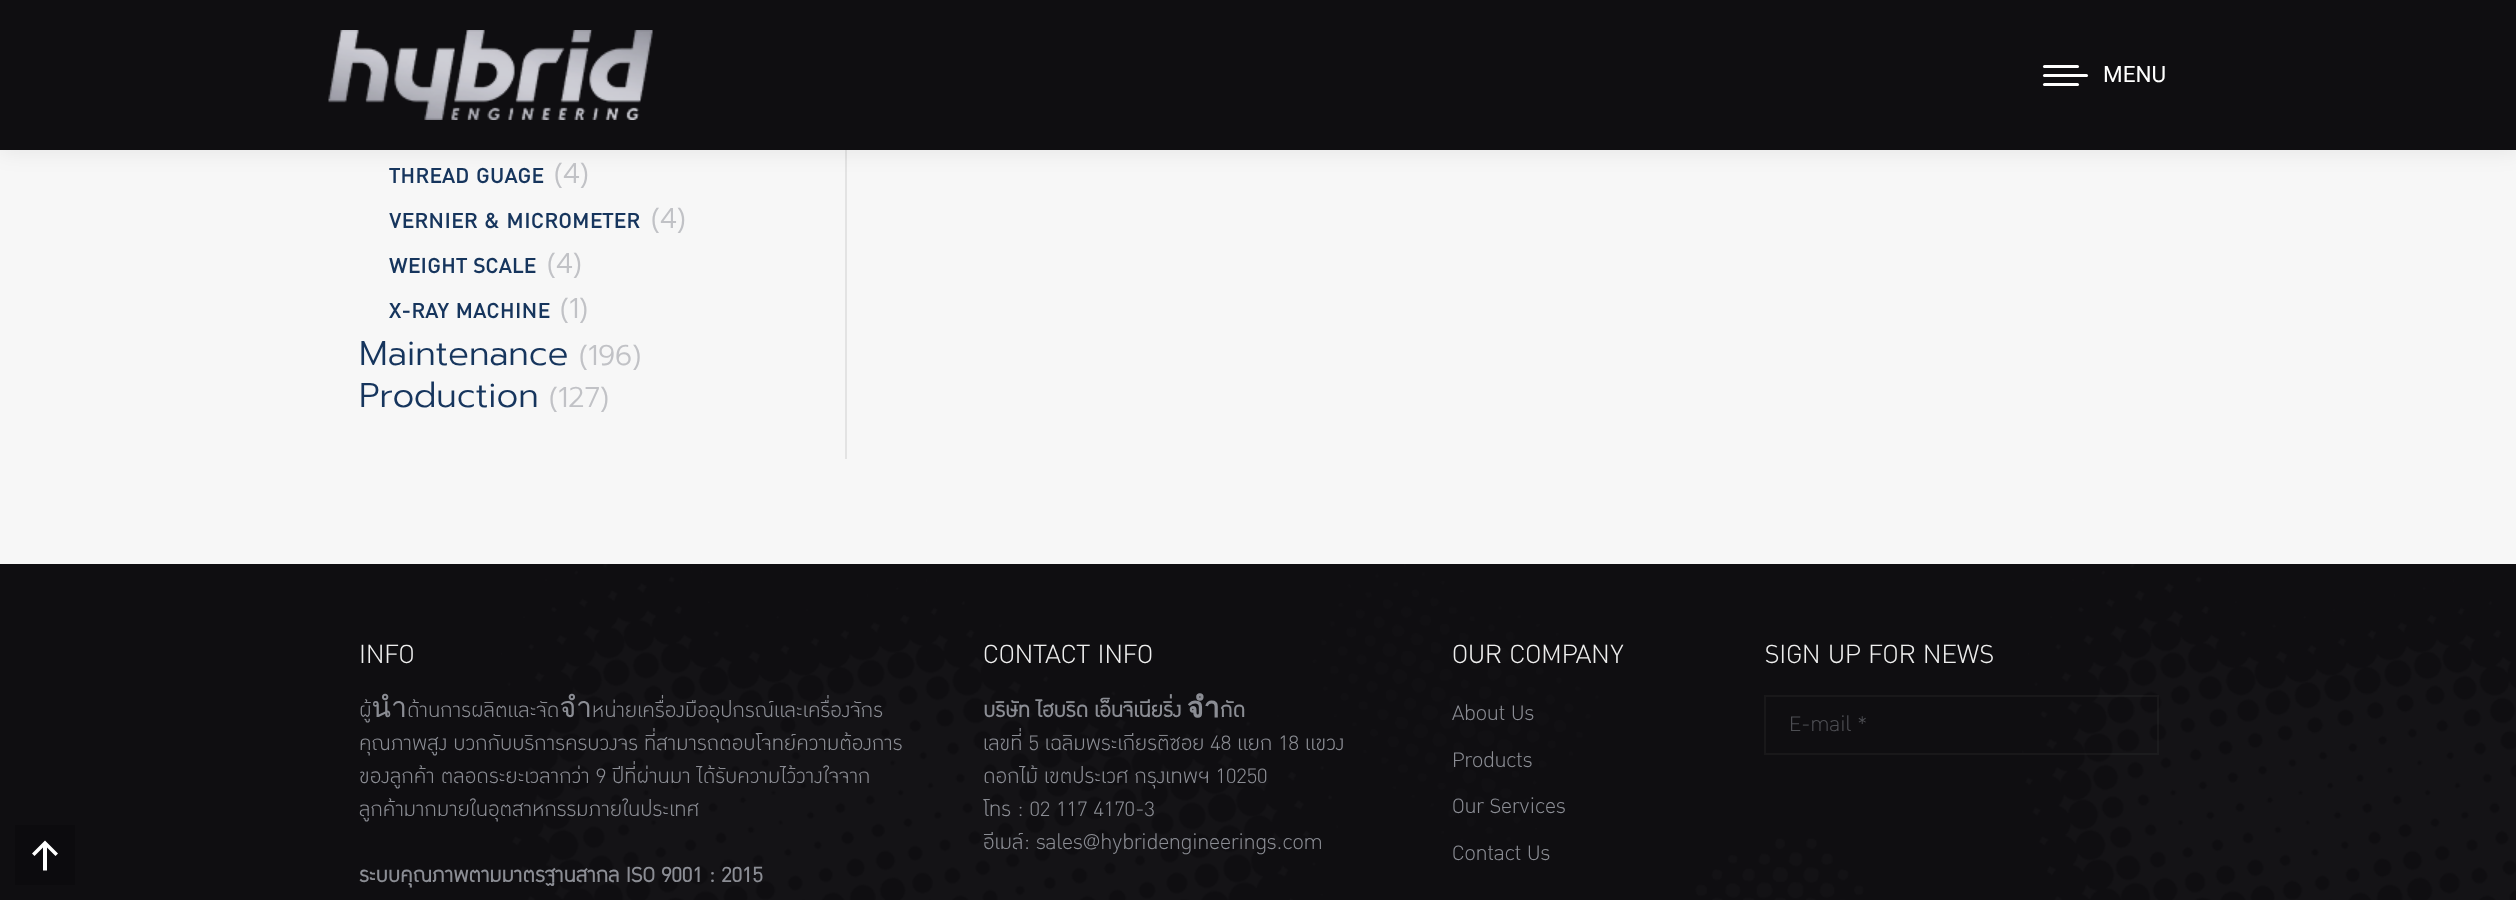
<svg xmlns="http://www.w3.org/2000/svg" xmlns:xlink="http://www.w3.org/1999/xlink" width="2516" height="900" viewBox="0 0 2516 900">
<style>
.cls-1{font:22.5px Roboto;fill:#ffffff}
.cls-2{font:500 30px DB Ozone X;fill:#16355d}
.cls-3{font:300 28.5px Prompt;fill:#c1c2c6}
.cls-4{font:300 34.5px Prompt;fill:#16355d}
.cls-5{font:300 36px DB Ozone X;fill:#eeeeee}
.cls-6{font:300 28.5px DB Ozone X;fill:#8b8d94}
.cls-7{font:bold 28.5px DB Ozone X;fill:#8b8d94}
.cls-8{font:300 28.5px DB Ozone X;fill:#4d4e53}
</style>
<rect width="100%" height="100%" fill="#f7f7f7"/>
<rect fill="#e3e3e3" x="845" y="150" width="2" height="309"/>
<rect fill="#000000" fill-opacity="0.07" filter="blur(11px)" x="-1" y="-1" width="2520" height="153"/>
<rect fill="#0f0e11" x="0" y="0" width="2516" height="150"/>
<image xlink:href="image0.png" x="328" y="30" width="325" height="90"/>
<rect fill="#ffffff" x="2043" y="65" width="36" height="3" rx="1.5"/>
<rect fill="#ffffff" x="2043" y="74" width="45" height="3" rx="1.5"/>
<rect fill="#ffffff" x="2043" y="83" width="36" height="3" rx="1.5"/>
<rect fill="#0f0e11" x="0" y="564" width="2516" height="336"/>
<rect fill="#0c0b0e" x="15" y="825" width="60" height="60"/>
<path fill="#ffffff" d="M32 853.5L34.5 856L43 847.5V870.5H47V847.5L55.5 856L58 853.5L45 840.5Z"/>
<image xlink:href="image1.png" x="500" y="564" width="2016" height="336"/>
<rect fill="none" stroke="#333333" stroke-opacity="0.3" stroke-width="2" x="1765" y="696" width="393" height="58"/>
<text class="cls-1" x="2103" y="82">MENU</text>
<text class="cls-2" x="389" y="183">THREAD GUAGE</text>
<text class="cls-3" x="554" y="183">(4)</text>
<text class="cls-2" x="389" y="228">VERNIER &amp; MICROMETER</text>
<text class="cls-3" x="651" y="228">(4)</text>
<text class="cls-2" x="389" y="273">WEIGHT SCALE</text>
<text class="cls-3" x="547" y="273">(4)</text>
<text class="cls-2" x="389" y="318">X-RAY MACHINE</text>
<text class="cls-3" x="560" y="318">(1)</text>
<text class="cls-4" x="359" y="365">Maintenance</text>
<text class="cls-3" x="579" y="365">(196)</text>
<text class="cls-4" x="359" y="407">Production</text>
<text class="cls-3" x="549" y="407">(127)</text>
<text class="cls-5" x="359" y="663">INFO</text>
<text class="cls-6"><tspan x="359" y="717">ผู้นำด้านการผลิตและจัดจำหน่ายเครื่องมืออุปกรณ์และเครื่องจักร</tspan><tspan x="359" y="750">คุณภาพสูง บวกกับบริการครบวงจร ที่สามารถตอบโจทย์ความต้องการ</tspan><tspan x="359" y="783">ของลูกค้า ตลอดระยะเวลากว่า 9 ปีที่ผ่านมา ได้รับความไว้วางใจจาก</tspan><tspan x="359" y="816">ลูกค้ามากมายในอุตสาหกรรมภายในประเทศ</tspan></text>
<text class="cls-7" x="359" y="882">ระบบคุณภาพตามมาตรฐานสากล ISO 9001 : 2015</text>
<text class="cls-5" x="983" y="663">CONTACT INFO</text>
<text class="cls-7" x="983" y="717">บริษัท ไฮบริด เอ็นจิเนียริ่ง จำกัด</text>
<text class="cls-6"><tspan x="983" y="750">เลขที่ 5 เฉลิมพระเกียรติซอย 48 แยก 18 แขวง</tspan><tspan x="983" y="783">ดอกไม้ เขตประเวศ กรุงเทพฯ 10250</tspan><tspan x="983" y="816">โทร : 02 117 4170-3</tspan><tspan x="983" y="849">อีเมล์: sales@hybridengineerings.com</tspan></text>
<text class="cls-5" x="1452" y="663">OUR COMPANY</text>
<text class="cls-6"><tspan x="1452" y="720">About Us</tspan><tspan x="1452" y="767">Products</tspan><tspan x="1452" y="813">Our Services</tspan><tspan x="1452" y="860">Contact Us</tspan></text>
<text class="cls-5" x="1765" y="663">SIGN UP FOR NEWS</text>
<text class="cls-8" x="1789" y="731">E-mail *</text>
</svg>
